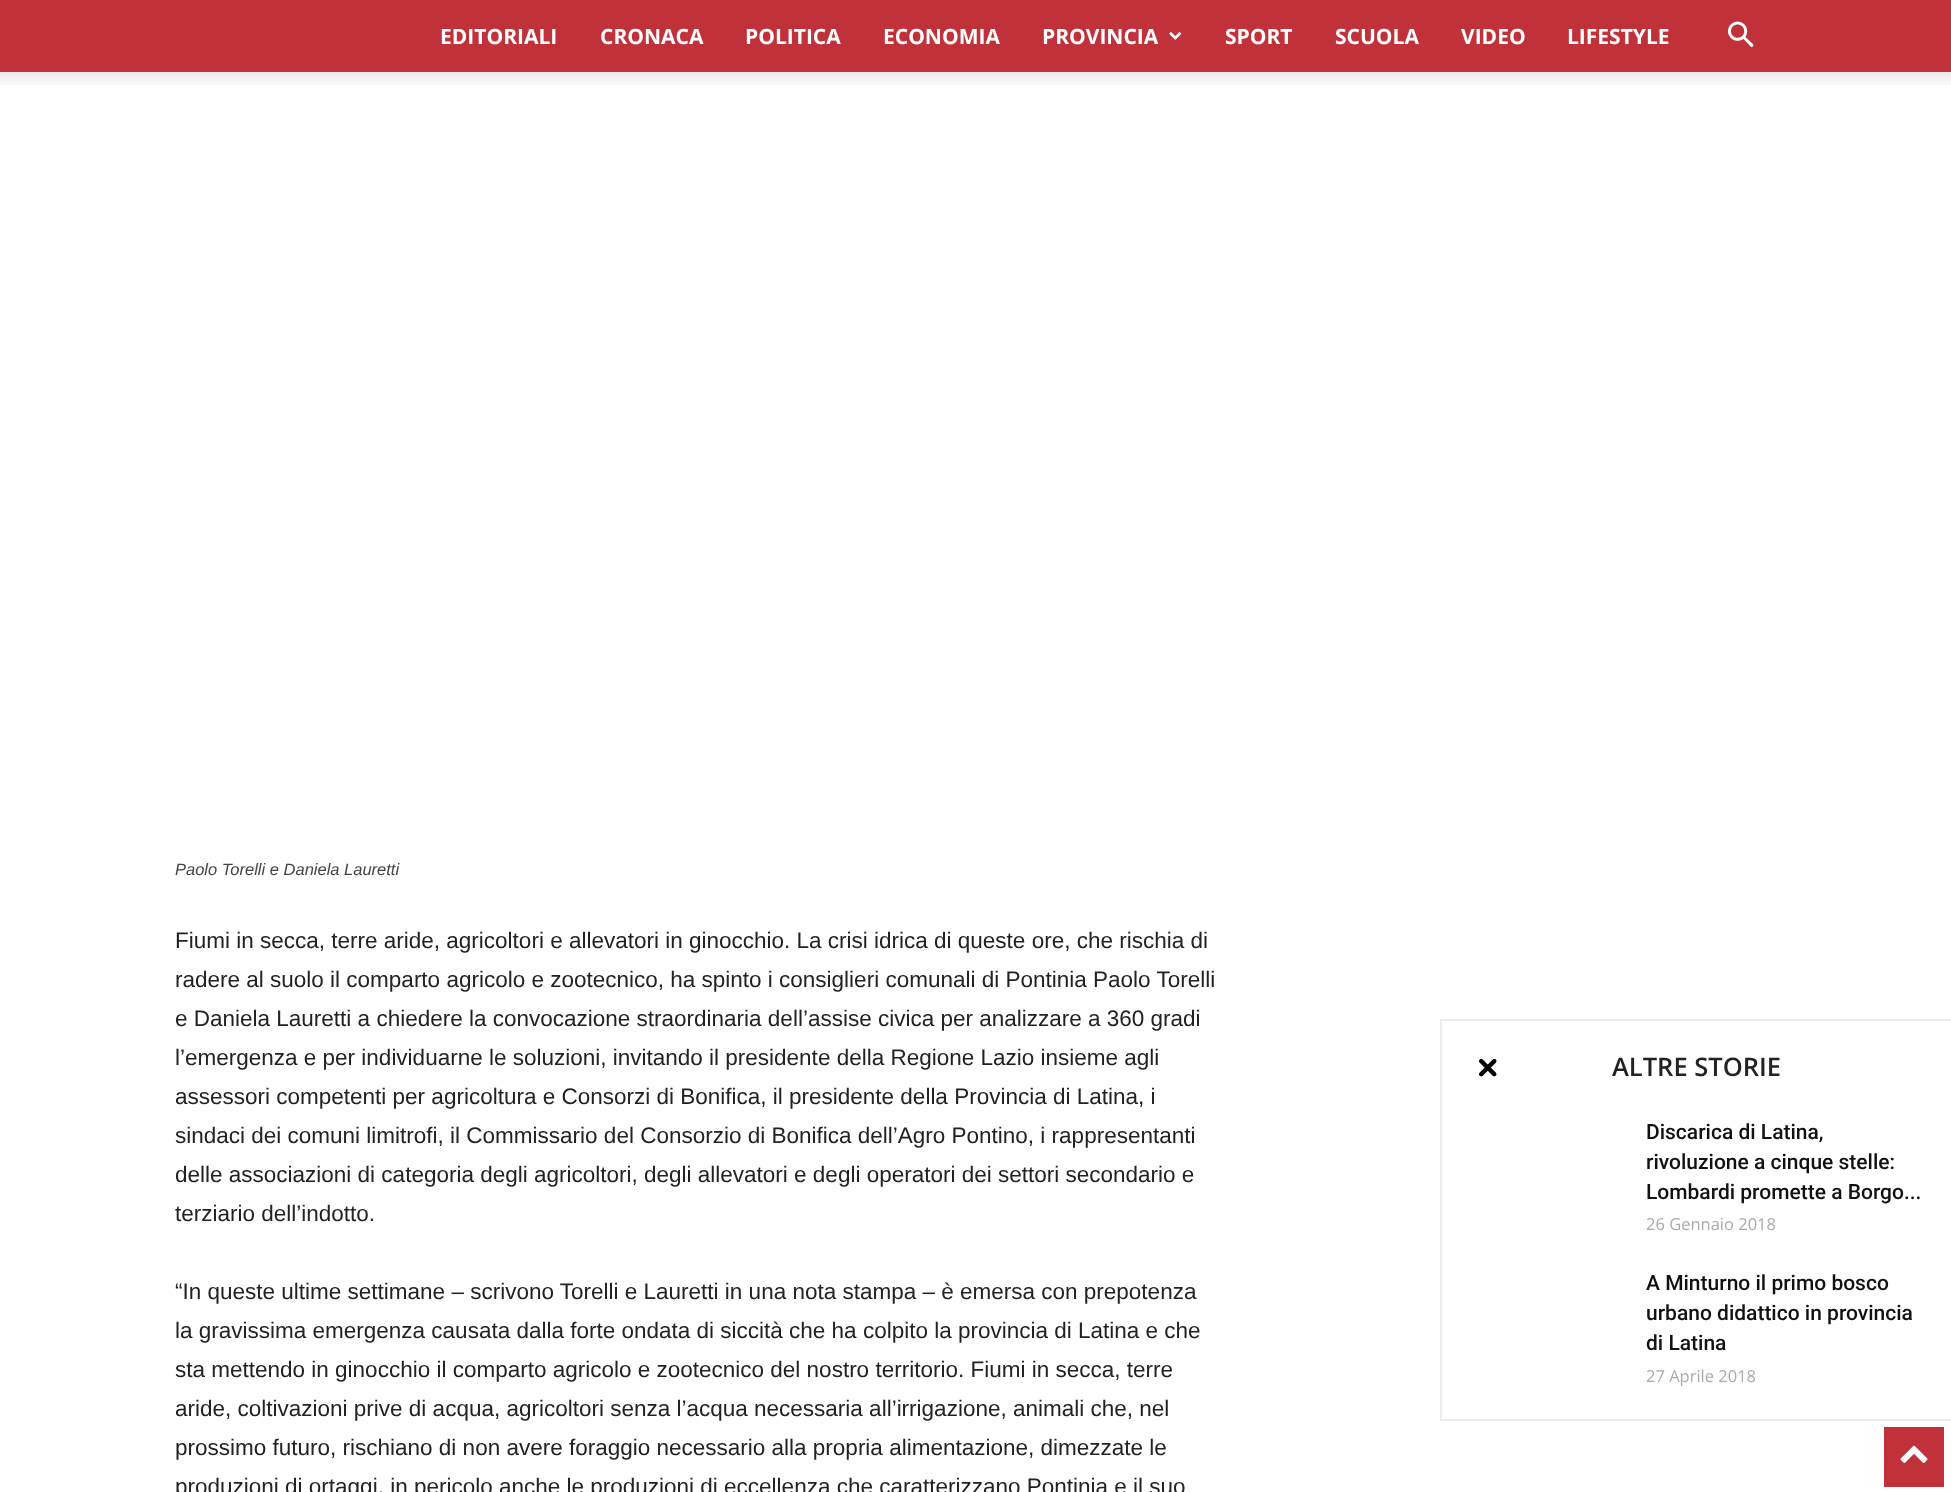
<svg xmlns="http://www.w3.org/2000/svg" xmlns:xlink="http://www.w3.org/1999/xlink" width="1951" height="1492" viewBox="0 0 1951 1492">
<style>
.cls-1{font:bold 21px Open Sans;fill:#ffffff}
.cls-2{font:italic 16.5px Liberation Sans;fill:#444444}
.cls-3{font:22.5px Liberation Sans;fill:#222222}
.cls-4{font:600 25.5px Open Sans;fill:#222222}
.cls-5{font:500 21px Roboto;fill:#111111}
.cls-6{font:16.5px Open Sans;fill:#aaaaaa}
</style>
<rect width="100%" height="100%" fill="#ffffff"/>
<rect fill="#c13139" x="0" y="0" width="1951" height="72"/>
<image xlink:href="image0.png" x="1169" y="32" width="13" height="8"/>
<image xlink:href="image1.png" x="1728" y="21" width="26" height="26"/>
<image xlink:href="image2.png" x="0" y="72" width="1951" height="13"/>
<rect fill="#ededed" x="1440" y="1019" width="511" height="2"/>
<rect fill="#ededed" x="1440" y="1419" width="511" height="2"/>
<rect fill="#ededed" x="1440" y="1019" width="2" height="402"/>
<image xlink:href="image3.png" x="1479" y="1058" width="18" height="19"/>
<rect fill="#c13139" x="1884" y="1427" width="60" height="60"/>
<image xlink:href="image4.png" x="1900" y="1445" width="28" height="18"/>
<text class="cls-1" x="440" y="44">EDITORIALI</text>
<text class="cls-1" x="600" y="44">CRONACA</text>
<text class="cls-1" x="745" y="44">POLITICA</text>
<text class="cls-1" x="883" y="44">ECONOMIA</text>
<text class="cls-1" x="1042" y="44">PROVINCIA</text>
<text class="cls-1" x="1225" y="44">SPORT</text>
<text class="cls-1" x="1335" y="44">SCUOLA</text>
<text class="cls-1" x="1461" y="44">VIDEO</text>
<text class="cls-1" x="1567" y="44">LIFESTYLE</text>
<text class="cls-2" x="175" y="875">Paolo Torelli e Daniela Lauretti</text>
<text class="cls-3"><tspan x="175" y="948">Fiumi in secca, terre aride, agricoltori e allevatori in ginocchio. La crisi idrica di queste ore, che rischia di</tspan><tspan x="175" y="987">radere al suolo il comparto agricolo e zootecnico, ha spinto i consiglieri comunali di Pontinia Paolo Torelli</tspan><tspan x="175" y="1026">e Daniela Lauretti a chiedere la convocazione straordinaria dell’assise civica per analizzare a 360 gradi</tspan><tspan x="175" y="1065">l’emergenza e per individuarne le soluzioni, invitando il presidente della Regione Lazio insieme agli</tspan><tspan x="175" y="1104">assessori competenti per agricoltura e Consorzi di Bonifica, il presidente della Provincia di Latina, i</tspan><tspan x="175" y="1143">sindaci dei comuni limitrofi, il Commissario del Consorzio di Bonifica dell’Agro Pontino, i rappresentanti</tspan><tspan x="175" y="1182">delle associazioni di categoria degli agricoltori, degli allevatori e degli operatori dei settori secondario e</tspan><tspan x="175" y="1221">terziario dell’indotto.</tspan></text>
<text class="cls-3"><tspan x="175" y="1299">“In queste ultime settimane – scrivono Torelli e Lauretti in una nota stampa – è emersa con prepotenza</tspan><tspan x="175" y="1338">la gravissima emergenza causata dalla forte ondata di siccità che ha colpito la provincia di Latina e che</tspan><tspan x="175" y="1377">sta mettendo in ginocchio il comparto agricolo e zootecnico del nostro territorio. Fiumi in secca, terre</tspan><tspan x="175" y="1416">aride, coltivazioni prive di acqua, agricoltori senza l’acqua necessaria all’irrigazione, animali che, nel</tspan><tspan x="175" y="1455">prossimo futuro, rischiano di non avere foraggio necessario alla propria alimentazione, dimezzate le</tspan><tspan x="175" y="1494">produzioni di ortaggi, in pericolo anche le produzioni di eccellenza che caratterizzano Pontinia e il suo</tspan></text>
<text class="cls-4" x="1612" y="1076">ALTRE STORIE</text>
<text class="cls-5"><tspan x="1646" y="1139">Discarica di Latina,</tspan><tspan x="1646" y="1169">rivoluzione a cinque stelle:</tspan><tspan x="1646" y="1199">Lombardi promette a Borgo...</tspan></text>
<text class="cls-6" x="1646" y="1230">26 Gennaio 2018</text>
<text class="cls-5"><tspan x="1646" y="1290">A Minturno il primo bosco</tspan><tspan x="1646" y="1320">urbano didattico in provincia</tspan><tspan x="1646" y="1350">di Latina</tspan></text>
<text class="cls-6" x="1646" y="1382">27 Aprile 2018</text>
</svg>
